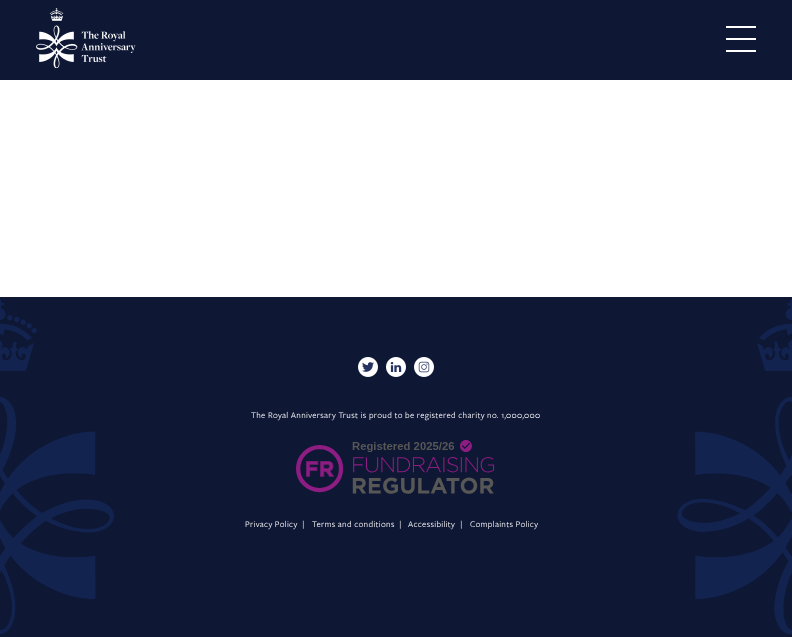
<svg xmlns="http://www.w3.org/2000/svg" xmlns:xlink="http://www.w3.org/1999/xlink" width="792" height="637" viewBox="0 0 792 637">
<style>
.cls-1{font:9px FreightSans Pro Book;letter-spacing:0.3px;fill:#ffffff}
</style>
<rect width="100%" height="100%" fill="#ffffff"/>
<rect fill="#0e1734" x="0" y="0" width="792" height="80"/>
<image xlink:href="image0.png" x="36" y="8" width="100" height="60"/>
<rect fill="#ffffff" x="726" y="38" width="30" height="2"/>
<rect fill="#ffffff" x="726" y="26" width="30" height="2"/>
<rect fill="#ffffff" x="726" y="50" width="30" height="2"/>
<rect fill="#0e1734" x="0" y="297" width="792" height="340"/>
<image xlink:href="image1.png" x="677" y="300" width="115" height="335"/>
<image xlink:href="image2.png" x="0" y="300" width="114" height="335"/>
<image xlink:href="image3.png" x="358" y="357" width="20" height="20"/>
<image xlink:href="image4.png" x="386" y="357" width="20" height="20"/>
<image xlink:href="image5.png" x="414" y="357" width="20" height="20"/>
<image xlink:href="image6.png" x="296" y="440" width="199" height="54"/>
<text class="cls-1" x="251" y="418">The Royal Anniversary Trust is proud to be registered charity no. 1,000,000</text>
<text class="cls-1" x="245" y="527">Privacy Policy</text>
<text class="cls-1" x="302" y="527">|</text>
<text class="cls-1" x="312" y="527">Terms and conditions</text>
<text class="cls-1" x="399" y="527">|</text>
<text class="cls-1" x="408" y="527">Accessibility</text>
<text class="cls-1" x="460" y="527">|</text>
<text class="cls-1" x="470" y="527">Complaints Policy</text>
</svg>
